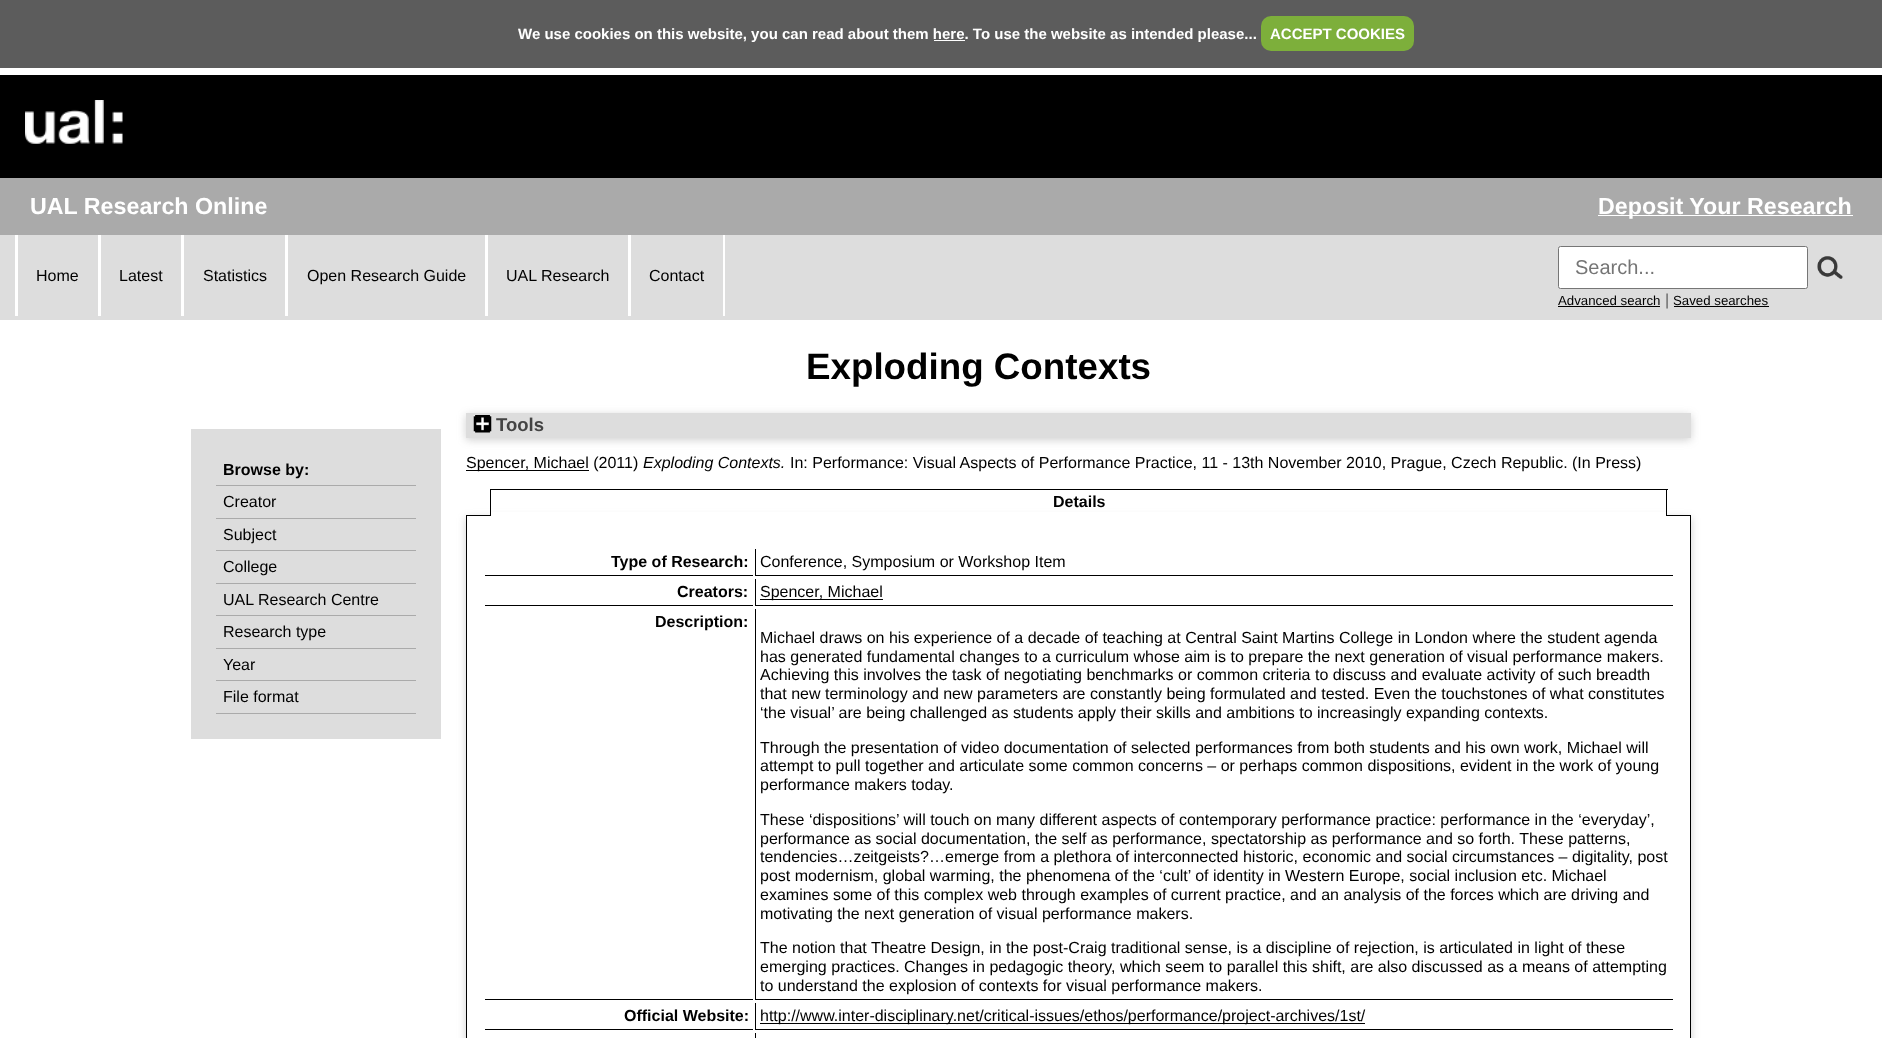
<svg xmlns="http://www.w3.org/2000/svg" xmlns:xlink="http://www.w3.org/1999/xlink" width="1882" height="1038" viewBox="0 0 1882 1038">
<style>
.cls-1{font:bold 15px Liberation Sans;fill:#ffffff}
.cls-2{font:bold 23.25px Liberation Sans;fill:#ffffff}
.cls-3{font:16px Liberation Sans;fill:#000000}
.cls-4{font:20px Liberation Sans;fill:#757575}
.cls-5{font:13.25px Liberation Sans;fill:#000000}
.cls-6{font:16px Liberation Sans;fill:#606060}
.cls-7{font:bold 36.75px Liberation Sans;fill:#000000}
.cls-8{font:bold 16px Liberation Sans;fill:#000000}
.cls-9{font:bold 18.5px Liberation Sans;fill:#444444}
.cls-10{font:italic 16px Liberation Sans;fill:#000000}
</style>
<defs>
<clipPath id="clip1"><path d="M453 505H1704V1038H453ZM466 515H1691V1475H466Z" clip-rule="evenodd"/></clipPath>
</defs>
<rect width="100%" height="100%" fill="#ffffff"/>
<rect fill="#5c5c5c" x="0" y="0" width="1882" height="68"/>
<rect fill="#7daf3b" x="1261" y="16" width="153" height="35" rx="10"/>
<rect fill="#ffffff" x="934" y="40" width="31" height="1"/>
<rect fill="#000000" x="0" y="75" width="1882" height="103"/>
<image xlink:href="image0.png" x="25" y="100" width="98" height="44"/>
<rect fill="#aaaaaa" x="0" y="178" width="1882" height="57"/>
<rect fill="#ffffff" x="1598" y="215" width="255" height="1"/>
<rect fill="#dddddd" x="0" y="235" width="1882" height="85"/>
<rect fill="#ffffff" x="15" y="235" width="3" height="81"/>
<rect fill="#ffffff" x="98" y="235" width="3" height="81"/>
<rect fill="#ffffff" x="181" y="235" width="3" height="81"/>
<rect fill="#ffffff" x="285" y="235" width="3" height="81"/>
<rect fill="#ffffff" x="485" y="235" width="3" height="81"/>
<rect fill="#ffffff" x="723" y="235" width="2" height="81"/>
<rect fill="#ffffff" x="628" y="235" width="3" height="81"/>
<rect fill="#ffffff" stroke="#767676" x="1558.5" y="246.5" width="249" height="42" rx="2"/>
<image xlink:href="image1.png" x="1817" y="256" width="26" height="23"/>
<rect fill="#000000" x="1558" y="306" width="102" height="1"/>
<rect fill="#000000" x="1674" y="306" width="95" height="1"/>
<rect fill="#dddddd" x="191" y="429" width="250" height="310"/>
<rect fill="#aaaaaa" x="216" y="485" width="200" height="1"/>
<rect fill="#aaaaaa" x="216" y="518" width="200" height="1"/>
<rect fill="#aaaaaa" x="216" y="550" width="200" height="1"/>
<rect fill="#aaaaaa" x="216" y="583" width="200" height="1"/>
<rect fill="#aaaaaa" x="216" y="615" width="200" height="1"/>
<rect fill="#aaaaaa" x="216" y="648" width="200" height="1"/>
<rect fill="#aaaaaa" x="216" y="680" width="200" height="1"/>
<rect fill="#aaaaaa" x="216" y="713" width="200" height="1"/>
<rect fill="#646464" fill-opacity="0.3" filter="blur(4px)" x="466" y="415" width="1225" height="25"/>
<rect fill="#dddddd" x="466" y="413" width="1225" height="25"/>
<image xlink:href="image2.png" x="473" y="415" width="19" height="18"/>
<rect fill="#000000" x="466" y="470" width="123" height="1"/>
<g clip-path="url(#clip1)">
<rect fill="#646464" fill-opacity="0.3" filter="blur(4px)" x="466" y="518" width="1225" height="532"/>
</g>
<rect fill="#000000" x="1690" y="515" width="1" height="523"/>
<rect fill="#000000" x="466" y="515" width="1" height="523"/>
<rect fill="#000000" x="466" y="515" width="1225" height="1"/>
<rect fill="#ffffff" x="491" y="512" width="1175" height="4"/>
<rect fill="#000000" x="490" y="489" width="1178" height="1"/>
<rect fill="#000000" x="1666" y="489" width="1" height="27"/>
<rect fill="#000000" x="490" y="489" width="1" height="27"/>
<rect fill="#000000" x="485" y="575" width="268" height="1"/>
<rect fill="#000000" x="755" y="575" width="918" height="1"/>
<rect fill="#000000" x="755" y="549" width="1" height="27"/>
<rect fill="#000000" x="485" y="605" width="268" height="1"/>
<rect fill="#000000" x="755" y="605" width="918" height="1"/>
<rect fill="#000000" x="755" y="579" width="1" height="27"/>
<rect fill="#000000" x="760" y="599" width="123" height="1"/>
<rect fill="#000000" x="485" y="999" width="268" height="1"/>
<rect fill="#000000" x="755" y="999" width="918" height="1"/>
<rect fill="#000000" x="755" y="609" width="1" height="391"/>
<rect fill="#000000" x="485" y="1029" width="268" height="1"/>
<rect fill="#000000" x="755" y="1029" width="918" height="1"/>
<rect fill="#000000" x="755" y="1003" width="1" height="27"/>
<rect fill="#000000" x="760" y="1023" width="605" height="1"/>
<rect fill="#000000" x="755" y="1033" width="1" height="5"/>
<text class="cls-1" x="518" y="39">We use cookies on this website, you can read about them here. To use the website as intended please...</text>
<text class="cls-1" x="1270" y="39">ACCEPT COOKIES</text>
<text class="cls-2" x="30" y="214">UAL Research Online</text>
<text class="cls-2" x="1598" y="214">Deposit Your Research</text>
<text class="cls-3" x="36" y="281">Home</text>
<text class="cls-3" x="119" y="281">Latest</text>
<text class="cls-3" x="203" y="281">Statistics</text>
<text class="cls-3" x="307" y="281">Open Research Guide</text>
<text class="cls-3" x="506" y="281">UAL Research</text>
<text class="cls-3" x="649" y="281">Contact</text>
<text class="cls-4" x="1575" y="274">Search...</text>
<text class="cls-5" x="1558" y="305">Advanced search</text>
<text class="cls-6" x="1665" y="305">|</text>
<text class="cls-5" x="1673" y="305">Saved searches</text>
<text class="cls-7" x="806" y="379">Exploding Contexts</text>
<text class="cls-8" x="223" y="475">Browse by:</text>
<text class="cls-3" x="223" y="507">Creator</text>
<text class="cls-3" x="223" y="540">Subject</text>
<text class="cls-3" x="223" y="572">College</text>
<text class="cls-3" x="223" y="605">UAL Research Centre</text>
<text class="cls-3" x="223" y="637">Research type</text>
<text class="cls-3" x="223" y="670">Year</text>
<text class="cls-3" x="223" y="702">File format</text>
<text class="cls-9" x="496" y="431">Tools</text>
<text class="cls-3" x="466" y="468">Spencer, Michael (2011)</text>
<text class="cls-10" x="643" y="468">Exploding Contexts.</text>
<text class="cls-3" x="790" y="468">In: Performance: Visual Aspects of Performance Practice, 11 - 13th November 2010, Prague, Czech Republic. (In Press)</text>
<text class="cls-8" x="1053" y="507">Details</text>
<text class="cls-8" x="611" y="567">Type of Research:</text>
<text class="cls-3" x="760" y="567">Conference, Symposium or Workshop Item</text>
<text class="cls-8" x="677" y="597">Creators:</text>
<text class="cls-3" x="760" y="597">Spencer, Michael</text>
<text class="cls-8" x="655" y="627">Description:</text>
<text class="cls-3"><tspan x="760" y="643">Michael draws on his experience of a decade of teaching at Central Saint Martins College in London where the student agenda</tspan><tspan x="760" y="662">has generated fundamental changes to a curriculum whose aim is to prepare the next generation of visual performance makers.</tspan><tspan x="760" y="680">Achieving this involves the task of negotiating benchmarks or common criteria to discuss and evaluate activity of such breadth</tspan><tspan x="760" y="699">that new terminology and new parameters are constantly being formulated and tested. Even the touchstones of what constitutes</tspan><tspan x="760" y="718">‘the visual’ are being challenged as students apply their skills and ambitions to increasingly expanding contexts.</tspan></text>
<text class="cls-3"><tspan x="760" y="753">Through the presentation of video documentation of selected performances from both students and his own work, Michael will</tspan><tspan x="760" y="771">attempt to pull together and articulate some common concerns – or perhaps common dispositions, evident in the work of young</tspan><tspan x="760" y="790">performance makers today.</tspan></text>
<text class="cls-3"><tspan x="760" y="825">These ‘dispositions’ will touch on many different aspects of contemporary performance practice: performance in the ‘everyday’,</tspan><tspan x="760" y="844">performance as social documentation, the self as performance, spectatorship as performance and so forth. These patterns,</tspan><tspan x="760" y="862">tendencies…zeitgeists?…emerge from a plethora of interconnected historic, economic and social circumstances – digitality, post</tspan><tspan x="760" y="881">post modernism, global warming, the phenomena of the ‘cult’ of identity in Western Europe, social inclusion etc. Michael</tspan><tspan x="760" y="900">examines some of this complex web through examples of current practice, and an analysis of the forces which are driving and</tspan><tspan x="760" y="919">motivating the next generation of visual performance makers.</tspan></text>
<text class="cls-3"><tspan x="760" y="953">The notion that Theatre Design, in the post-Craig traditional sense, is a discipline of rejection, is articulated in light of these</tspan><tspan x="760" y="972">emerging practices. Changes in pedagogic theory, which seem to parallel this shift, are also discussed as a means of attempting</tspan><tspan x="760" y="991">to understand the explosion of contexts for visual performance makers.</tspan></text>
<text class="cls-8" x="624" y="1021">Official Website:</text>
<text class="cls-3" x="760" y="1021">http://www.inter-disciplinary.net/critical-issues/ethos/performance/project-archives/1st/</text>
</svg>
